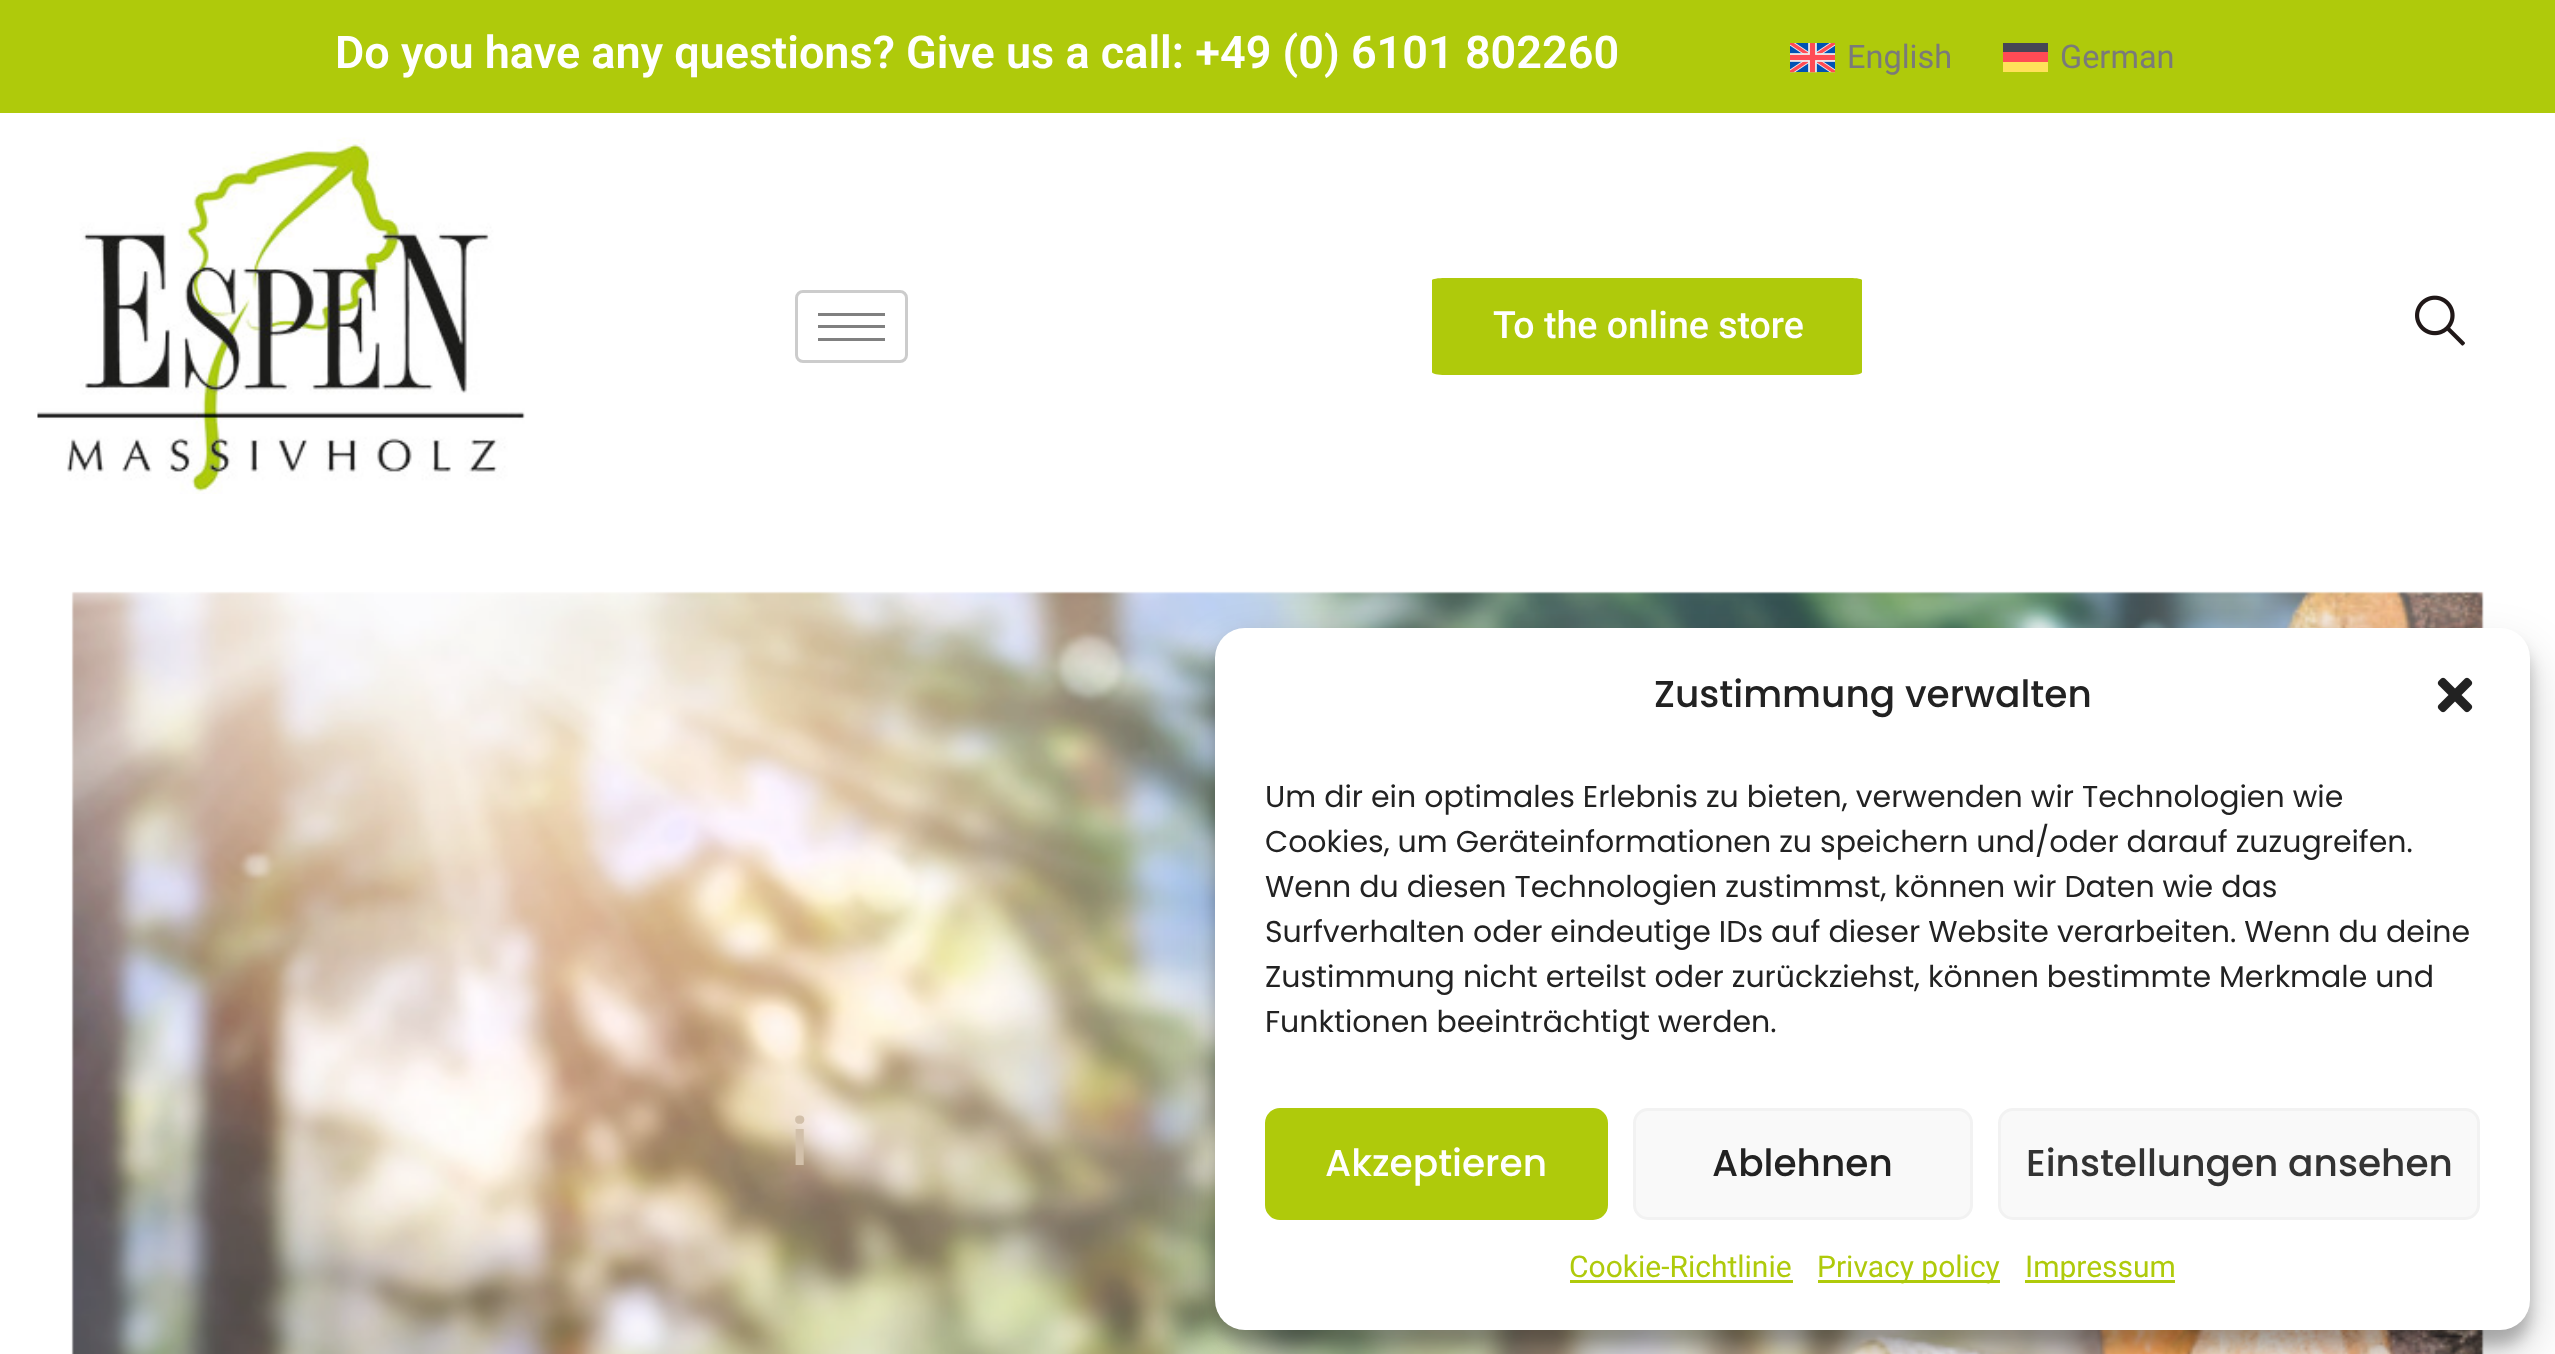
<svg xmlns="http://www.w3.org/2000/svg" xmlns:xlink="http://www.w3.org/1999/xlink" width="2555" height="1354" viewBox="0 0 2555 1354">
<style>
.cls-1{font:600 45px Roboto;fill:#ffffff}
.cls-2{font:32.5px Roboto;fill:#7a7a7a}
.cls-3{font:500 37.5px Roboto;fill:#ffffff}
.cls-4{font:500 68px Roboto;letter-spacing:34px;fill:#d2c0aa}
.cls-5{font:500 37.5px Poppins;fill:#222222}
.cls-6{font:30px Poppins;fill:#222222}
.cls-7{font:500 37.5px Poppins;fill:#ffffff}
.cls-8{font:500 37.5px Poppins;fill:#333333}
.cls-9{font:30px Roboto;fill:#afca0b}
</style>
<rect width="100%" height="100%" fill="#ffffff"/>
<rect fill="#afca0b" x="0" y="0" width="2555" height="113"/>
<image xlink:href="image0.png" x="1790" y="43" width="45" height="30"/>
<rect fill="#464655" x="2003" y="43" width="45" height="9"/>
<rect fill="#ff4b55" x="2003" y="52" width="45" height="10"/>
<rect fill="#ffe15a" x="2003" y="62" width="45" height="10"/>
<image xlink:href="image1.png" x="37" y="137" width="488" height="357"/>
<rect fill="none" stroke="#cccccc" stroke-width="3" x="796.5" y="291.5" width="110" height="70" rx="6.5"/>
<rect fill="#808080" x="818" y="313" width="67" height="3"/>
<rect fill="#808080" x="818" y="325" width="67" height="3"/>
<rect fill="#808080" x="818" y="338" width="67" height="3"/>
<path fill="#afca0b" d="M1445 278H1850C1857 278 1862 279 1862 280V372C1862 374 1857 375 1850 375H1445C1438 375 1432 374 1432 372V280C1432 279 1438 278 1445 278Z"/>
<image xlink:href="image2.png" x="2415" y="295" width="50" height="51"/>
<image xlink:href="image3.png" x="71" y="591" width="2413" height="763"/>
<rect fill="#000000" fill-opacity="0.23" filter="blur(7.5px)" x="1215" y="643" width="1315" height="702" rx="30"/>
<rect fill="#000000" fill-opacity="0.19" filter="blur(25px)" x="1215" y="653" width="1315" height="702" rx="30"/>
<rect fill="#ffffff" x="1215" y="628" width="1315" height="702" rx="30"/>
<image xlink:href="image4.png" x="2437" y="677" width="36" height="36"/>
<rect fill="#afca0b" stroke="#afca0b" stroke-width="3" x="1266.5" y="1109.5" width="340" height="109" rx="13.5"/>
<rect fill="#f9f9f9" stroke="#f2f2f2" stroke-width="3" x="1634.5" y="1109.5" width="337" height="109" rx="13.5"/>
<rect fill="#f9f9f9" stroke="#f2f2f2" stroke-width="3" x="1999.5" y="1109.5" width="479" height="109" rx="13.5"/>
<rect fill="#afca0b" x="1570" y="1280" width="223" height="3"/>
<rect fill="#afca0b" x="1818" y="1280" width="182" height="3"/>
<rect fill="#afca0b" x="2025" y="1280" width="150" height="3"/>
<text class="cls-1" x="335" y="68">Do you have any questions? Give us a call: +49 (0) 6101 802260</text>
<text class="cls-2" x="1847" y="68">English</text>
<text class="cls-2" x="2060" y="68">German</text>
<text class="cls-3" x="1493" y="338">To the online store</text>
<text class="cls-4" x="791" y="1165">i</text>
<text class="cls-5" x="1654" y="707">Zustimmung verwalten</text>
<text class="cls-6"><tspan x="1265" y="807">Um dir ein optimales Erlebnis zu bieten, verwenden wir Technologien wie</tspan><tspan x="1265" y="852">Cookies, um Geräteinformationen zu speichern und/oder darauf zuzugreifen.</tspan><tspan x="1265" y="897">Wenn du diesen Technologien zustimmst, können wir Daten wie das</tspan><tspan x="1265" y="942">Surfverhalten oder eindeutige IDs auf dieser Website verarbeiten. Wenn du deine</tspan><tspan x="1265" y="987">Zustimmung nicht erteilst oder zurückziehst, können bestimmte Merkmale und</tspan><tspan x="1265" y="1032">Funktionen beeinträchtigt werden.</tspan></text>
<text class="cls-7" x="1325" y="1176">Akzeptieren</text>
<text class="cls-5" x="1712" y="1176">Ablehnen</text>
<text class="cls-8" x="2026" y="1176">Einstellungen ansehen</text>
<text class="cls-9" x="1569" y="1277">Cookie-Richtlinie</text>
<text class="cls-9" x="1817" y="1277">Privacy policy</text>
<text class="cls-9" x="2025" y="1277">Impressum</text>
</svg>
